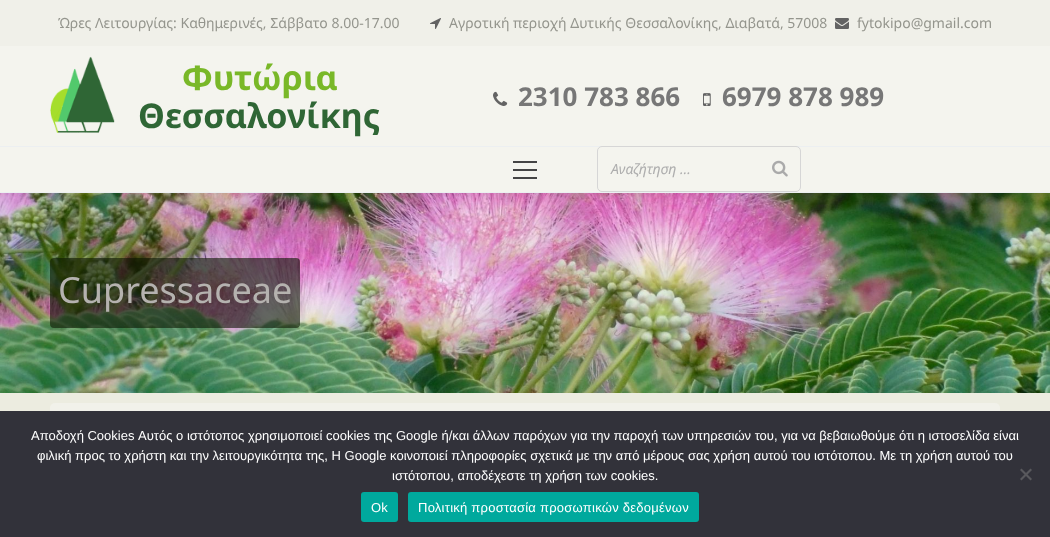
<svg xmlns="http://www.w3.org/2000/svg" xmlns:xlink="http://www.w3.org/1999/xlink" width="1050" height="537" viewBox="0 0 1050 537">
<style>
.cls-1{font:14px Noto Sans;fill:#94958d}
.cls-2{font:bold 34px Noto Sans;fill:#79b828}
.cls-3{font:bold 34px Noto Sans;fill:#2f6635}
.cls-4{font:bold 26px Noto Sans;fill:#777777}
.cls-5{font:italic 14px Noto Sans;fill:#aeaeae}
.cls-6{font:36px Noto Sans;fill:#b5b2af}
.cls-7{font:13px Liberation Sans;fill:#ffffff}
.cls-8{font:13px Liberation Sans;letter-spacing:0.25px;fill:#ffffff}
</style>
<rect width="100%" height="100%" fill="#ecece0"/>
<image xlink:href="image6.png" x="0" y="193" width="1050" height="200"/>
<rect fill="#000000" fill-opacity="0.1" filter="blur(5px)" x="1" y="0" width="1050" height="193"/>
<rect fill="#f0f0e9" x="0" y="0" width="1050" height="46"/>
<image xlink:href="image0.png" x="430" y="18" width="11" height="11"/>
<image xlink:href="image1.png" x="835" y="18" width="14" height="11"/>
<rect fill="#f4f4ee" x="0" y="46" width="1050" height="100"/>
<rect fill="#eceff1" x="0" y="146" width="1050" height="1"/>
<image xlink:href="image2.png" x="50" y="56" width="65" height="77"/>
<image xlink:href="image3.png" x="493" y="91" width="15" height="15"/>
<image xlink:href="image4.png" x="703" y="93" width="8" height="13"/>
<rect fill="#f4f4ee" x="0" y="147" width="1050" height="45"/>
<rect fill="none" stroke="#d6d6d6" x="597.5" y="146.5" width="203" height="45" rx="4.5"/>
<image xlink:href="image5.png" x="772" y="160" width="16" height="17"/>
<rect fill="#eceff1" x="0" y="192" width="1050" height="1"/>
<rect fill="#444444" x="513" y="169" width="24" height="2"/>
<rect fill="#444444" x="513" y="161" width="24" height="2"/>
<rect fill="#444444" x="513" y="177" width="24" height="2"/>
<rect fill="#0c1501" fill-opacity="0.6" x="50" y="258" width="250" height="70" rx="4"/>
<rect fill="#f1f1ea" x="50" y="403" width="950" height="70" rx="5"/>
<rect fill="#32323a" x="0" y="411" width="1050" height="126"/>
<path fill="#59595d" d="M1030.5 468.5L1032 470L1021.5 480.5L1020 479Z"/>
<path fill="#59595d" d="M1020 470L1021.5 468.5L1032 479L1030.5 480.5Z"/>
<rect fill="#00a99d" x="361" y="492" width="37" height="30" rx="3"/>
<rect fill="#00a99d" x="408" y="492" width="291" height="30" rx="3"/>
<text class="cls-1" x="58" y="28">Ώρες Λειτουργίας: Καθημερινές, Σάββατο 8.00-17.00</text>
<text class="cls-1" x="449" y="28">Aγροτική περιοχή Δυτικής Θεσσαλονίκης, Διαβατά, 57008</text>
<text class="cls-1" x="857" y="28">fytokipo@gmail.com</text>
<text class="cls-2" x="182" y="90">Φυτώρια</text>
<text class="cls-3" x="138" y="128">Θεσσαλονίκης</text>
<text class="cls-4" x="518" y="106">2310 783 866</text>
<text class="cls-4" x="722" y="106">6979 878 989</text>
<text class="cls-5" x="611" y="174">Αναζήτηση …</text>
<text class="cls-6" x="58" y="303">Cupressaceae</text>
<text class="cls-7" x="31" y="440">Aποδοχή Cookies Αυτός ο ιστότοπος χρησιμοποιεί cookies της Google ή/και άλλων παρόχων για την παροχή των υπηρεσιών του, για να βεβαιωθούμε ότι η ιστοσελίδα είναι</text>
<text class="cls-7" x="37" y="460">φιλική προς το χρήστη και την λειτουργικότητα της, Η Google κοινοποιεί πληροφορίες σχετικά με την από μέρους σας χρήση αυτού του ιστότοπου. Με τη χρήση αυτού του</text>
<text class="cls-7" x="392" y="480">ιστότοπου, αποδέχεστε τη χρήση των cookies.</text>
<text class="cls-8" x="371" y="512">Ok</text>
<text class="cls-8" x="418" y="512">Πολιτική προστασία προσωπικών δεδομένων</text>
</svg>
